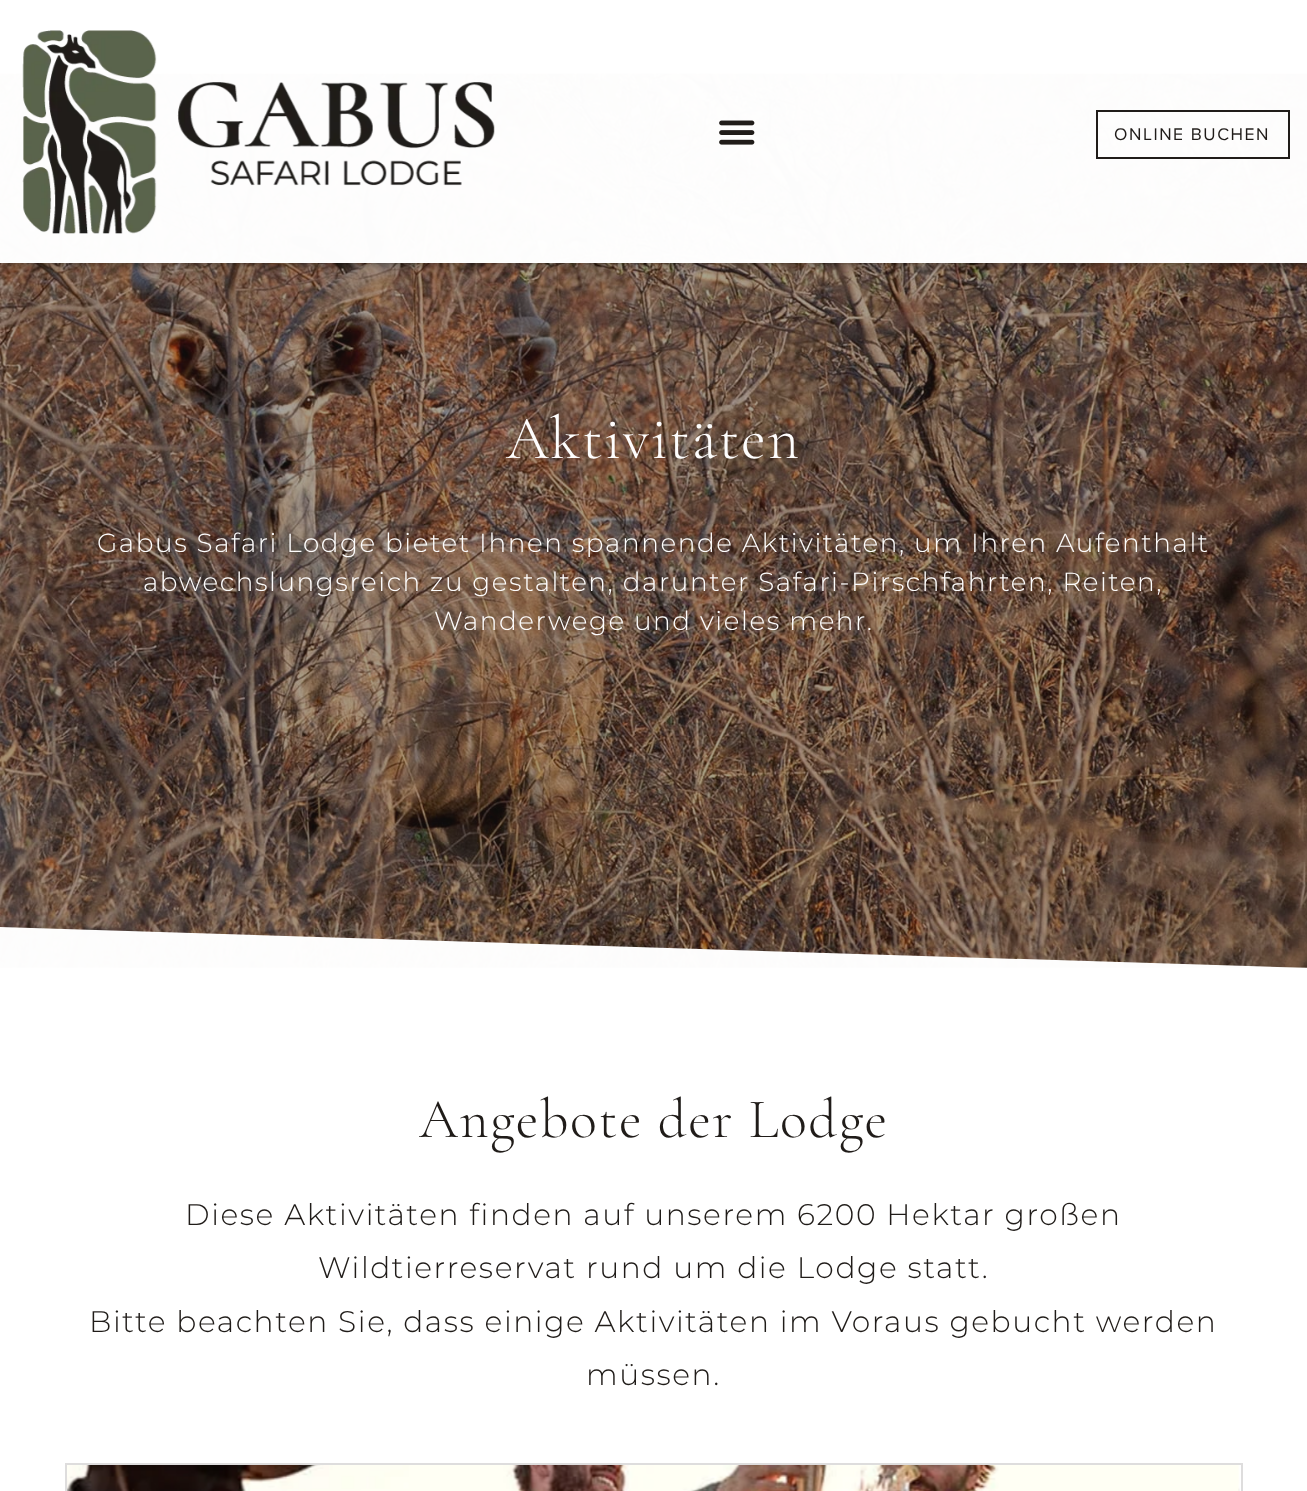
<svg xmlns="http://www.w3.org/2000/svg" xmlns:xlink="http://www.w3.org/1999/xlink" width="1307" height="1491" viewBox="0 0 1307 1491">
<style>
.cls-1{font:17.5px Proxima Nova;letter-spacing:1.57px;fill:#201c19}
.cls-2{font:300 61.25px Cormorant Garamond;letter-spacing:1.57px;fill:#fefdfd}
.cls-3{font:300 26.25px Montserrat;letter-spacing:1.57px;fill:#fefdfd}
.cls-4{font:300 56px Cormorant Garamond;letter-spacing:1.57px;fill:#201c19}
.cls-5{font:300 29.75px Montserrat;letter-spacing:1.57px;fill:#201c19}
</style>
<defs>
<clipPath id="clip1"><path d="M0 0H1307V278H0ZM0 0H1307V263H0Z" clip-rule="evenodd"/></clipPath>
</defs>
<rect width="100%" height="100%" fill="#ffffff"/>
<image xlink:href="image2.png" x="0" y="73" width="1307" height="895"/>
<g clip-path="url(#clip1)">
<rect fill="#000000" fill-opacity="0.5" filter="blur(4.5px)" x="0" y="0" width="1307" height="263"/>
</g>
<rect fill="#ffffff" fill-opacity="0.99" x="0" y="73" width="1307" height="190"/>
<image xlink:href="image0.png" x="22" y="30" width="473" height="204"/>
<image xlink:href="image1.png" x="719" y="120" width="36" height="25"/>
<rect fill="none" stroke="#201c19" stroke-width="2" x="1097" y="111" width="192" height="47"/>
<path fill="#ffffff" fill-opacity="0.99" d="M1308 968V970H-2V927Z"/>
<rect fill="none" stroke="#dedddd" stroke-width="2" x="66" y="1464" width="1176" height="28"/>
<image xlink:href="image3.png" x="67" y="1465" width="1173" height="26"/>
<text class="cls-1" x="1114" y="140">ONLINE BUCHEN</text>
<text class="cls-2" x="506" y="458">Aktivitäten</text>
<text class="cls-3" x="97" y="552">Gabus Safari Lodge bietet Ihnen spannende Aktivitäten, um Ihren Aufenthalt</text>
<text class="cls-3" x="143" y="591">abwechslungsreich zu gestalten, darunter Safari-Pirschfahrten, Reiten,</text>
<text class="cls-3" x="434" y="630">Wanderwege und vieles mehr.</text>
<text class="cls-4" x="419" y="1137">Angebote der Lodge</text>
<text class="cls-5" x="185" y="1225">Diese Aktivitäten finden auf unserem 6200 Hektar großen</text>
<text class="cls-5" x="318" y="1278">Wildtierreservat rund um die Lodge statt.</text>
<text class="cls-5" x="89" y="1332">Bitte beachten Sie, dass einige Aktivitäten im Voraus gebucht werden</text>
<text class="cls-5" x="586" y="1385">müssen.</text>
</svg>
